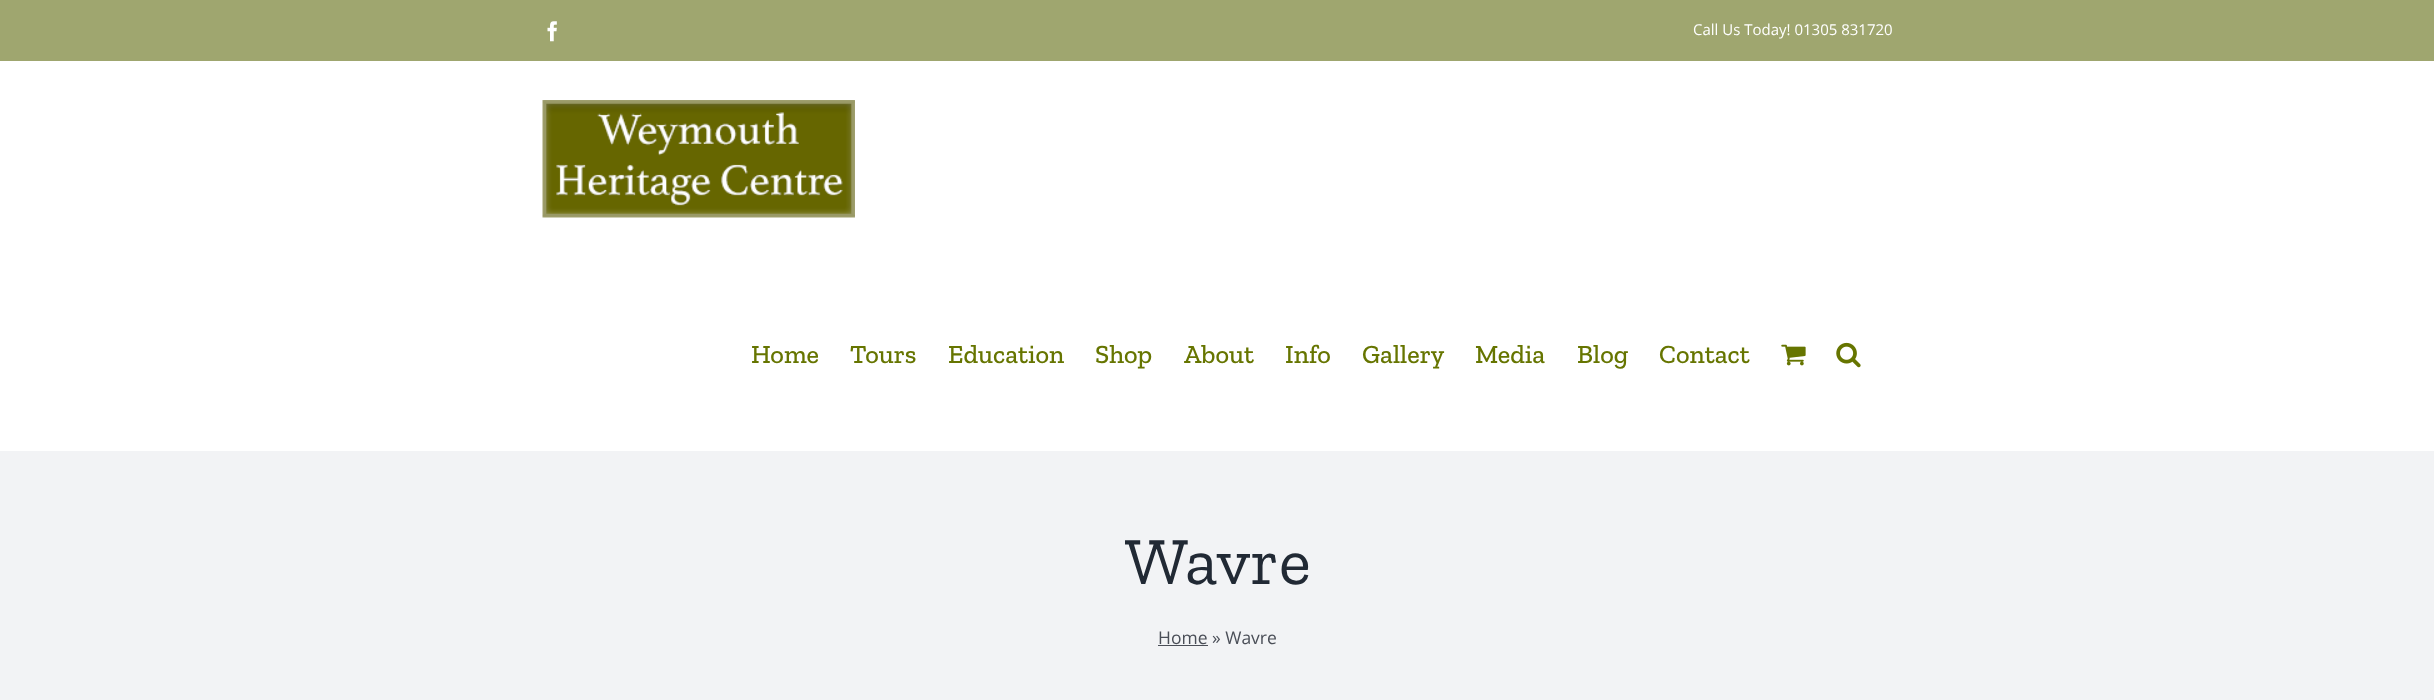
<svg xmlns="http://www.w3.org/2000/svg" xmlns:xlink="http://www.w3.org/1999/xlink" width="2434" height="700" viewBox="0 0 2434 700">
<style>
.cls-1{font:15px Open Sans;fill:#ffffff}
.cls-2{font:500 26.25px Zilla Slab;fill:#667500}
.cls-3{font:67.5px Zilla Slab;fill:#212934}
.cls-4{font:17.5px Open Sans;fill:#4a4e57}
</style>
<rect width="100%" height="100%" fill="#ffffff"/>
<rect fill="#9fa66f" x="0" y="0" width="2434" height="61"/>
<image xlink:href="image0.png" x="547" y="21" width="10" height="21"/>
<image xlink:href="image1.png" x="542" y="100" width="313" height="118"/>
<image xlink:href="image2.png" x="1781" y="344" width="25" height="22"/>
<image xlink:href="image3.png" x="1836" y="342" width="25" height="26"/>
<rect fill="#f2f3f5" x="0" y="451" width="2434" height="249"/>
<rect fill="#4a4e57" x="1158" y="645" width="50" height="1"/>
<text class="cls-1" x="1693" y="35">Call Us Today! 01305 831720</text>
<text class="cls-2" x="751" y="363">Home</text>
<text class="cls-2" x="850" y="363">Tours</text>
<text class="cls-2" x="948" y="363">Education</text>
<text class="cls-2" x="1095" y="363">Shop</text>
<text class="cls-2" x="1184" y="363">About</text>
<text class="cls-2" x="1285" y="363">Info</text>
<text class="cls-2" x="1362" y="363">Gallery</text>
<text class="cls-2" x="1475" y="363">Media</text>
<text class="cls-2" x="1577" y="363">Blog</text>
<text class="cls-2" x="1659" y="363">Contact</text>
<text class="cls-3" x="1125" y="584">Wavre</text>
<text class="cls-4" x="1158" y="644">Home » Wavre</text>
</svg>
